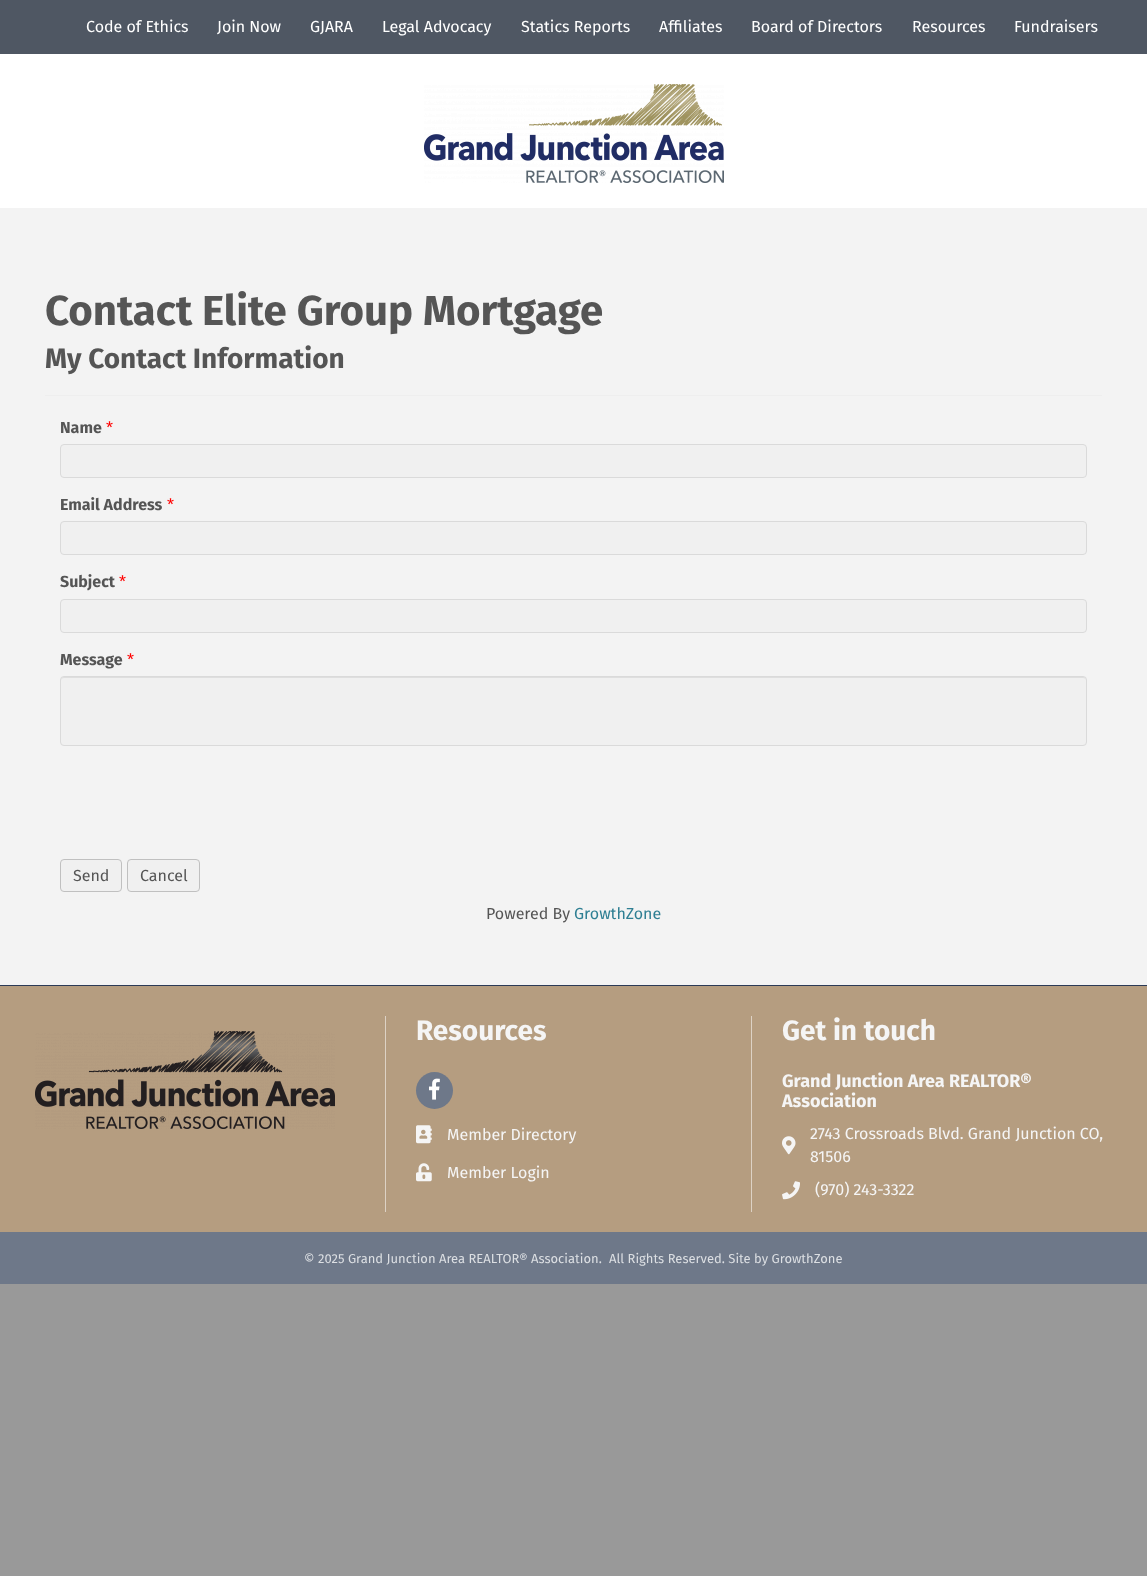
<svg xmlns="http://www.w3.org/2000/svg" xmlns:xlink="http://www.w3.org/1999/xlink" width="1147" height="1576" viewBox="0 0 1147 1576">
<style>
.cls-1{font:16px Fira Sans;fill:#ffffff}
.cls-2{font:bold 42px Fira Sans;fill:#555555}
.cls-3{font:bold 28px Fira Sans;fill:#555555}
.cls-4{font:bold 16px Fira Sans;fill:#555555}
.cls-5{font:16px Fira Sans;fill:#ff0000}
.cls-6{font:16px Fira Sans;fill:#555555}
.cls-7{font:16px Fira Sans;fill:#2f7f93}
.cls-8{font:bold 28px Fira Sans;fill:#f5f5f5}
.cls-9{font:16px Fira Sans;fill:#f5f5f5}
.cls-10{font:bold 18px Fira Sans;fill:#f5f5f5}
.cls-11{font:13px Fira Sans;fill:#dcdfe3}
</style>
<rect width="100%" height="100%" fill="#999999"/>
<rect fill="#4f5763" x="0" y="0" width="1147" height="54"/>
<rect fill="#ffffff" x="0" y="54" width="1147" height="154"/>
<image xlink:href="image0.png" x="424" y="84" width="300" height="99"/>
<rect fill="#f3f3f3" x="0" y="208" width="1147" height="777"/>
<rect fill="#eeeeee" x="45" y="395" width="1057" height="1"/>
<rect fill="#f0f0f0" stroke="#dadada" x="60.5" y="444.5" width="1026" height="33" rx="3.5"/>
<rect fill="#f0f0f0" stroke="#dadada" x="60.5" y="521.5" width="1026" height="33" rx="3.5"/>
<rect fill="#f0f0f0" stroke="#dadada" x="60.5" y="599.5" width="1026" height="33" rx="3.5"/>
<rect fill="#f0f0f0" x="60" y="676" width="1027" height="70" rx="4"/>
<path fill="#dedede" d="M64 678H1083C1085 678 1086 679 1086 681C1086 679 1085 677 1083 677H64C62 677 61 679 61 681C61 679 62 678 64 678Z"/>
<rect fill="none" stroke="#dadada" x="60.5" y="676.5" width="1026" height="69" rx="3.5"/>
<rect fill="#f0f0f0" stroke="#c0c0c0" x="60.5" y="859.5" width="61" height="32" rx="3.5"/>
<rect fill="#f0f0f0" stroke="#c0c0c0" x="127.5" y="859.5" width="72" height="32" rx="3.5"/>
<rect fill="#b59d80" x="0" y="986" width="1147" height="246"/>
<rect fill="#2c3a56" x="0" y="985" width="1147" height="1"/>
<image xlink:href="image1.png" x="35" y="1031" width="300" height="98"/>
<rect fill="#ddd2c5" x="385" y="1016" width="1" height="196"/>
<circle fill="#6e7889" cx="434.5" cy="1090.5" r="18.5"/>
<image xlink:href="image2.png" x="429" y="1078" width="11" height="22"/>
<image xlink:href="image3.png" x="416" y="1125" width="16" height="19"/>
<image xlink:href="image4.png" x="416" y="1163" width="16" height="19"/>
<rect fill="#ddd2c5" x="751" y="1016" width="1" height="196"/>
<image xlink:href="image5.png" x="782" y="1136" width="14" height="19"/>
<image xlink:href="image6.png" x="782" y="1181" width="18" height="19"/>
<rect fill="#6e7889" x="0" y="1232" width="1147" height="52"/>
<text class="cls-1" x="86" y="32">Code of Ethics</text>
<text class="cls-1" x="217" y="32">Join Now</text>
<text class="cls-1" x="310" y="32">GJARA</text>
<text class="cls-1" x="382" y="32">Legal Advocacy</text>
<text class="cls-1" x="521" y="32">Statics Reports</text>
<text class="cls-1" x="659" y="32">Affiliates</text>
<text class="cls-1" x="751" y="32">Board of Directors</text>
<text class="cls-1" x="912" y="32">Resources</text>
<text class="cls-1" x="1014" y="32">Fundraisers</text>
<text class="cls-2" x="45" y="325">Contact Elite Group Mortgage</text>
<text class="cls-3" x="45" y="368">My Contact Information</text>
<text class="cls-4" x="60" y="433">Name</text>
<text class="cls-5" x="106" y="433">*</text>
<text class="cls-4" x="60" y="510">Email Address</text>
<text class="cls-5" x="167" y="510">*</text>
<text class="cls-4" x="60" y="587">Subject</text>
<text class="cls-5" x="119" y="587">*</text>
<text class="cls-4" x="60" y="665">Message</text>
<text class="cls-5" x="127" y="665">*</text>
<text class="cls-6" x="73" y="881">Send</text>
<text class="cls-6" x="140" y="881">Cancel</text>
<text class="cls-6" x="486" y="919">Powered By</text>
<text class="cls-7" x="574" y="919">GrowthZone</text>
<text class="cls-8" x="416" y="1040">Resources</text>
<text class="cls-9" x="447" y="1140">Member Directory</text>
<text class="cls-9" x="447" y="1178">Member Login</text>
<text class="cls-8" x="782" y="1040">Get in touch</text>
<text class="cls-10"><tspan x="782" y="1087">Grand Junction Area REALTOR®</tspan><tspan x="782" y="1107">Association</tspan></text>
<text class="cls-9"><tspan x="810" y="1139">2743 Crossroads Blvd. Grand Junction CO,</tspan><tspan x="810" y="1162">81506</tspan></text>
<text class="cls-9" x="815" y="1195">(970) 243-3322</text>
<text class="cls-11" x="304" y="1263">© 2025 Grand Junction Area REALTOR® Association.</text>
<text class="cls-11" x="609" y="1263">All Rights Reserved. Site by GrowthZone</text>
</svg>
